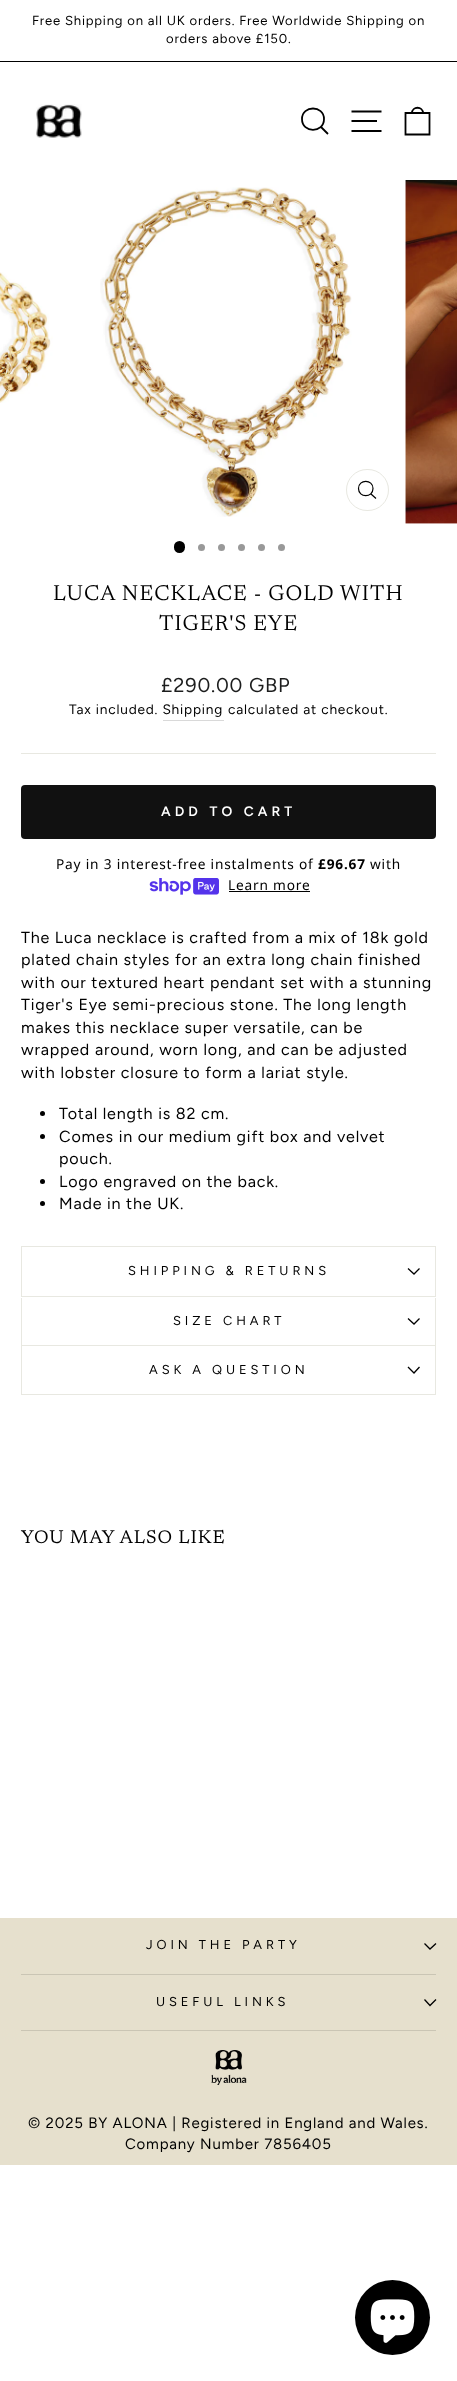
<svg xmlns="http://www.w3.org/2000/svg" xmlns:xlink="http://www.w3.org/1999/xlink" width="457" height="2381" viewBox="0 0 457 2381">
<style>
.cls-1{font:13.1px Figtree;letter-spacing:0.8px;fill:#000000}
.cls-2{font:21.9px Newsreader;letter-spacing:1.1px;fill:#000000}
.cls-3{font:20px Figtree;letter-spacing:0.8px;fill:#1c1d1d}
.cls-4{font:13.7px Figtree;letter-spacing:0.8px;fill:#000000}
.cls-5{font:600 13.75px Figtree;letter-spacing:4.1px;fill:#ffffff}
.cls-6{font:13.7px Noto Sans;letter-spacing:0.8px;fill:#000000}
.cls-7{font:bold 13.7px Noto Sans;letter-spacing:0.8px;fill:#000000}
.cls-8{font:16.1px Figtree;letter-spacing:0.8px;fill:#000000}
.cls-9{font:12.9px Figtree;letter-spacing:3.9px;fill:#000000}
.cls-10{font:18.6px 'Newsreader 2';letter-spacing:0.9px;fill:#000000}
.cls-11{font:15px Figtree;letter-spacing:0.8px;fill:#000000}
</style>
<rect width="100%" height="100%" fill="#ffffff"/>
<rect fill="#000000" x="0" y="61" width="457" height="1"/>
<image xlink:href="image0.png" x="36" y="104" width="46" height="34"/>
<path fill="none" stroke="#000000" stroke-width="1.8" d="M324 119C324 133.5 302 133.5 302 119C302 105 324 105 324 119ZM328 134L321 127"/>
<path fill="none" stroke="#000000" stroke-width="1.8" d="M351.5 111.5H381.5M351.5 121H377M351.5 131H381.5"/>
<path fill="none" stroke="#000000" stroke-width="1.8" d="M405.5 113H429.5V134.5H405.5ZM412 113C412 106 423 106 423 113"/>
<image xlink:href="image1.png" x="0" y="272" width="53" height="131"/>
<image xlink:href="image2.png" x="100" y="187" width="252" height="330"/>
<rect fill="none" stroke="#e8e8e1" x="346.5" y="469.5" width="42" height="41" rx="20.5"/>
<path fill="none" stroke="#000000" stroke-width="1.2" d="M373 488.5C373 498 358.5 498 358.5 488.5C358.5 479 373 479 373 488.5ZM376 498.5L371 494"/>
<image xlink:href="image3.png" x="405" y="180" width="52" height="344"/>
<rect fill="#000000" x="174" y="541" width="11" height="12" rx="5.5"/>
<circle fill="#999999" cx="201.5" cy="547.5" r="3.5"/>
<circle fill="#999999" cx="221.5" cy="547.5" r="3.5"/>
<circle fill="#999999" cx="241.5" cy="547.5" r="3.5"/>
<circle fill="#999999" cx="261.5" cy="547.5" r="3.5"/>
<circle fill="#999999" cx="281.5" cy="547.5" r="3.5"/>
<rect fill="#d9d9d9" x="163" y="720" width="61" height="1"/>
<rect fill="#e8e8e1" x="21" y="753" width="415" height="1"/>
<rect fill="#111111" x="21" y="785" width="415" height="54" rx="4"/>
<image xlink:href="image4.png" x="149" y="878" width="70" height="17"/>
<rect fill="#000000" x="229" y="891" width="81" height="1"/>
<circle fill="#000000" cx="42.5" cy="1113.5" r="2.5"/>
<circle fill="#000000" cx="42.5" cy="1136.5" r="2.5"/>
<circle fill="#000000" cx="42.5" cy="1181.5" r="2.5"/>
<circle fill="#000000" cx="42.5" cy="1203.5" r="2.5"/>
<rect fill="#e8e8e1" x="21" y="1296" width="415" height="1"/>
<rect fill="#e8e8e1" x="21" y="1246" width="415" height="1"/>
<rect fill="#e8e8e1" x="435" y="1246" width="1" height="50"/>
<rect fill="#e8e8e1" x="21" y="1246" width="1" height="50"/>
<path fill="none" stroke="#000000" stroke-width="1.3" d="M408 1268.5L414 1274L419.5 1268.5"/>
<rect fill="#e8e8e1" x="21" y="1345" width="415" height="1"/>
<rect fill="#e8e8e1" x="435" y="1298" width="1" height="47"/>
<rect fill="#e8e8e1" x="21" y="1298" width="1" height="47"/>
<path fill="none" stroke="#000000" stroke-width="1.3" d="M408 1318.5L414 1324L419.5 1318.5"/>
<rect fill="#e8e8e1" x="21" y="1394" width="415" height="1"/>
<rect fill="#e8e8e1" x="435" y="1346" width="1" height="48"/>
<rect fill="#e8e8e1" x="21" y="1346" width="1" height="48"/>
<path fill="none" stroke="#000000" stroke-width="1.3" d="M408 1367L414 1373L419.5 1367"/>
<rect fill="#e6e0cd" x="0" y="1918" width="457" height="247"/>
<path fill="none" stroke="#000000" stroke-width="1.3" d="M424.5 1943.5L430 1949L436 1943.5"/>
<rect fill="#cac5b4" x="21" y="1974" width="415" height="1"/>
<path fill="none" stroke="#000000" stroke-width="1.3" d="M424.5 1999.5L430 2005.5L436 1999.5"/>
<rect fill="#cac5b4" x="21" y="2030" width="415" height="1"/>
<image xlink:href="image5.png" x="211" y="2050" width="36" height="35"/>
<circle fill="#000000" cx="392.5" cy="2317.5" r="37.5"/>
<image xlink:href="image6.png" x="370" y="2299" width="45" height="44"/>
<text class="cls-1" x="32" y="25">Free Shipping on all UK orders. Free Worldwide Shipping on</text>
<text class="cls-1" x="166" y="43">orders above £150.</text>
<text class="cls-2" x="53" y="600">LUCA NECKLACE - GOLD WITH</text>
<text class="cls-2" x="159" y="630">TIGER'S EYE</text>
<text class="cls-3" x="161" y="692">£290.00 GBP</text>
<text class="cls-4" x="69" y="714">Tax included. Shipping</text>
<text class="cls-4" x="228" y="714">calculated at checkout.</text>
<text class="cls-5" x="161" y="816">ADD TO CART</text>
<text class="cls-6" x="56" y="869">Pay in 3 interest-free instalments of</text>
<text class="cls-7" x="318" y="869">£96.67</text>
<text class="cls-6" x="370" y="869">with</text>
<text class="cls-6" x="228" y="890">Learn more</text>
<text class="cls-8"><tspan x="21" y="943">The Luca necklace is crafted from a mix of 18k gold</tspan><tspan x="21" y="965">plated chain styles for an extra long chain finished</tspan><tspan x="21" y="988">with our textured heart pendant set with a stunning</tspan><tspan x="21" y="1010">Tiger's Eye semi-precious stone. The long length</tspan><tspan x="21" y="1033">makes this necklace super versatile, can be</tspan><tspan x="21" y="1055">wrapped around, worn long, and can be adjusted</tspan><tspan x="21" y="1078">with lobster closure to form a lariat style.</tspan></text>
<text class="cls-8"><tspan x="59" y="1119">Total length is 82 cm.</tspan><tspan x="59" y="1142">Comes in our medium gift box and velvet</tspan><tspan x="59" y="1164">pouch.</tspan><tspan x="59" y="1187">Logo engraved on the back.</tspan><tspan x="59" y="1209">Made in the UK.</tspan></text>
<text class="cls-9" x="128" y="1275">SHIPPING &amp; RETURNS</text>
<text class="cls-9" x="173" y="1325">SIZE CHART</text>
<text class="cls-9" x="149" y="1374">ASK A QUESTION</text>
<text class="cls-10" x="21" y="1543">YOU MAY ALSO LIKE</text>
<text class="cls-9" x="146" y="1949">JOIN THE PARTY</text>
<text class="cls-9" x="156" y="2006">USEFUL LINKS</text>
<text class="cls-11" x="28" y="2128">© 2025 BY ALONA | Registered in England and Wales.</text>
<text class="cls-11" x="125" y="2149">Company Number 7856405</text>
</svg>
